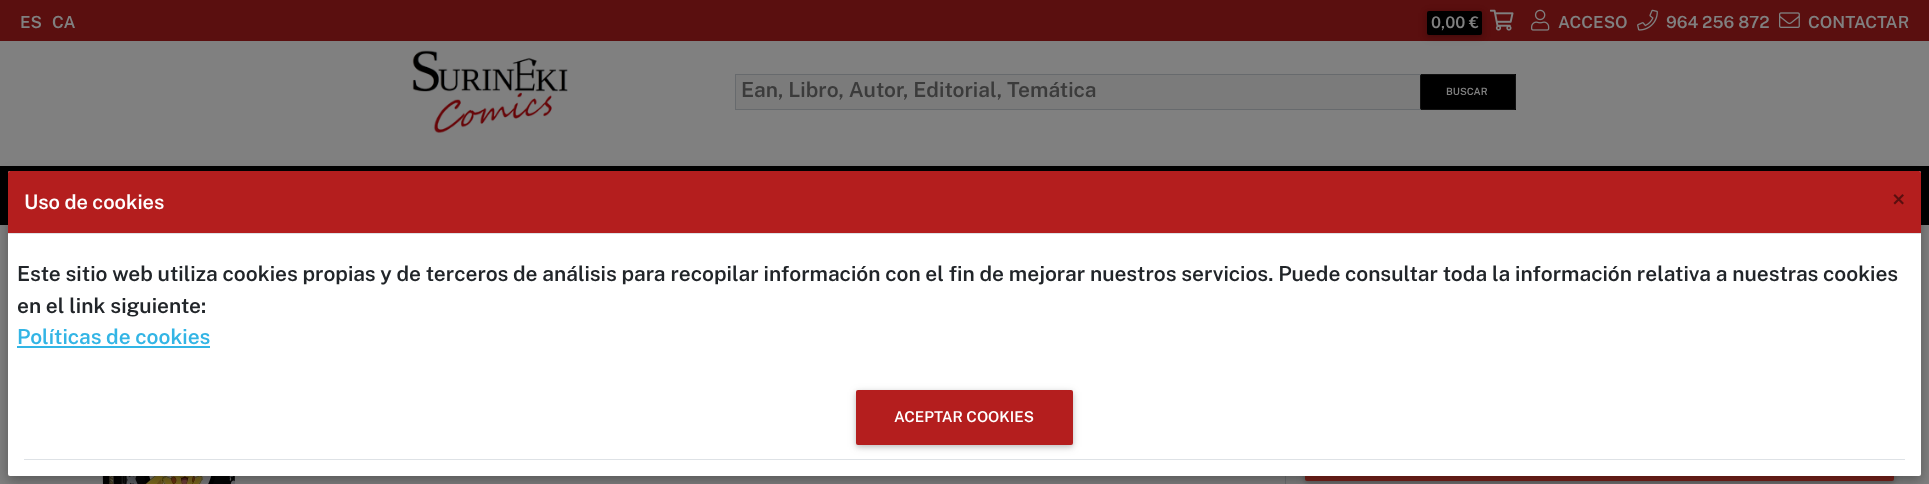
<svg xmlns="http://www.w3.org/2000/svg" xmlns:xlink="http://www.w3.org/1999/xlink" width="1929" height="484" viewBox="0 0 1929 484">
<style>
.cls-1{font:100 16.75px Public Sans;fill:#808080}
.cls-2{font:100 16px Public Sans;fill:#808080}
.cls-3{font:100 20.9px Public Sans;fill:#3b3b3b}
.cls-4{font:100 10px Public Sans;fill:#808080}
.cls-5{font:100 20px Public Sans;fill:#ffffff}
.cls-6{font:100 24px Public Sans;fill:#5a0f0f}
.cls-7{font:100 20.9px Public Sans;fill:#212529}
.cls-8{font:100 20.9px Public Sans;fill:#33b5e5}
.cls-9{font:100 15px Public Sans;fill:#ffffff}
</style>
<rect width="100%" height="100%" fill="#808080"/>
<rect fill="#5a0f0f" x="0" y="0" width="1929" height="41"/>
<rect fill="#000000" fill-opacity="0.12" filter="blur(5px)" x="1427" y="13" width="55" height="24" rx="2"/>
<rect fill="#000000" fill-opacity="0.16" filter="blur(2.5px)" x="1427" y="13" width="55" height="24" rx="2"/>
<rect fill="#000000" x="1427" y="11" width="55" height="24" rx="2"/>
<image xlink:href="image0.png" x="1490" y="9" width="24" height="22"/>
<image xlink:href="image1.png" x="1531" y="9" width="19" height="22"/>
<image xlink:href="image2.png" x="1637" y="9" width="21" height="22"/>
<image xlink:href="image3.png" x="1779" y="12" width="21" height="16"/>
<image xlink:href="image4.png" x="412" y="50" width="156" height="83"/>
<rect fill="#7b7b7b" stroke="#676a6d" x="735.5" y="74.5" width="685" height="35"/>
<rect fill="#000000" x="1421" y="74" width="95" height="36"/>
<rect fill="#000000" stroke="#111111" x="1420.5" y="74.5" width="95" height="35" rx="1.5"/>
<rect fill="#000000" x="0" y="166" width="1929" height="59"/>
<image xlink:href="image5.png" x="102" y="476" width="134" height="8"/>
<rect fill="#6f7173" x="1285" y="476" width="1" height="8"/>
<rect fill="#000000" fill-opacity="0.12" filter="blur(5px)" x="1305" y="436" width="589" height="47" rx="2"/>
<rect fill="#000000" fill-opacity="0.16" filter="blur(2.5px)" x="1305" y="436" width="589" height="47" rx="2"/>
<rect fill="#7a221b" x="1305" y="434" width="589" height="47" rx="2"/>
<rect fill="#000000" fill-opacity="0.15" filter="blur(7.5px)" x="8" y="175" width="1913" height="305" rx="2"/>
<rect fill="#000000" fill-opacity="0.18" filter="blur(5.5px)" x="8" y="176" width="1913" height="305" rx="2"/>
<rect fill="#ffffff" x="8" y="171" width="1913" height="305" rx="2"/>
<path fill="#b41e1e" d="M10 171H1919C1920 171 1921 172 1921 173V234H8V173C8 172 9 171 10 171Z"/>
<rect fill="#dee2e6" x="8" y="233" width="1913" height="1"/>
<rect fill="#33b5e5" x="17" y="346" width="193" height="2"/>
<rect fill="#dee2e6" x="24" y="459" width="1881" height="1"/>
<rect fill="#000000" fill-opacity="0.12" filter="blur(5px)" x="856" y="392" width="217" height="55" rx="2"/>
<rect fill="#000000" fill-opacity="0.16" filter="blur(2.5px)" x="856" y="392" width="217" height="55" rx="2"/>
<rect fill="#b41e1e" x="856" y="390" width="217" height="55" rx="2"/>
<text class="cls-1" x="20" y="28">ES</text>
<text class="cls-1" x="52" y="28">CA</text>
<text class="cls-2" x="1431" y="28">0,00 €</text>
<text class="cls-1" x="1558" y="28">ACCESO</text>
<text class="cls-1" x="1666" y="28">964 256 872</text>
<text class="cls-1" x="1808" y="28">CONTACTAR</text>
<text class="cls-3" x="741" y="97">Ean, Libro, Autor, Editorial, Temática</text>
<text class="cls-4" x="1446" y="95">BUSCAR</text>
<text class="cls-5" x="24" y="209">Uso de cookies</text>
<text class="cls-6" x="1892" y="208">×</text>
<text class="cls-7"><tspan x="17" y="281">Este sitio web utiliza cookies propias y de terceros de análisis para recopilar información con el fin de mejorar nuestros servicios. Puede consultar toda la información relativa a nuestras cookies</tspan><tspan x="17" y="313">en el link siguiente:</tspan></text>
<text class="cls-8" x="17" y="344">Políticas de cookies</text>
<text class="cls-9" x="894" y="422">ACEPTAR COOKIES</text>
</svg>
